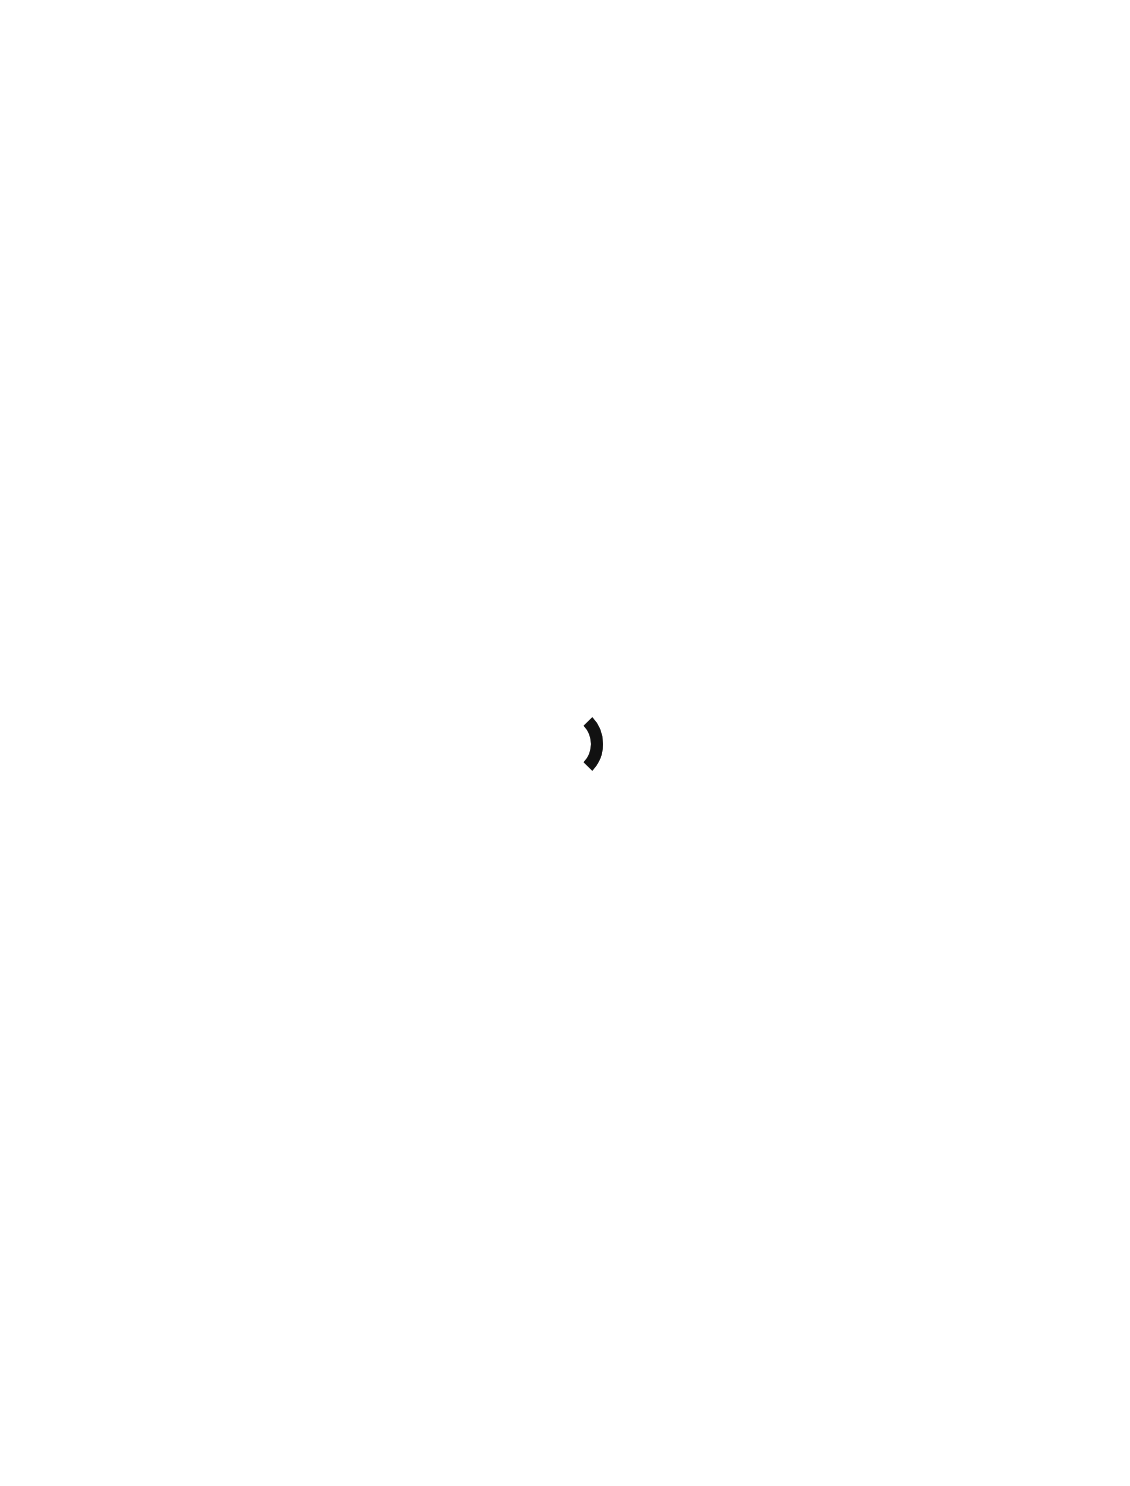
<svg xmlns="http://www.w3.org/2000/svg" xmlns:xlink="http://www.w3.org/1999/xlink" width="1130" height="1486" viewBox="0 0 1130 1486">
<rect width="100%" height="100%" fill="#ffffff"/>
<path fill="none" stroke="#686868" stroke-width="12" d="M588 721.5C600 734 600 754 588 766.5"/>
<path fill="none" stroke="#000000" stroke-opacity="0.59" stroke-width="12" d="M588 721.5C600 734 600 754 588 766.5"/>
<path fill="none" stroke="#000000" stroke-opacity="0.59" stroke-width="12" d="M588 721.5C600 734 600 754 588 766.5"/>
</svg>
